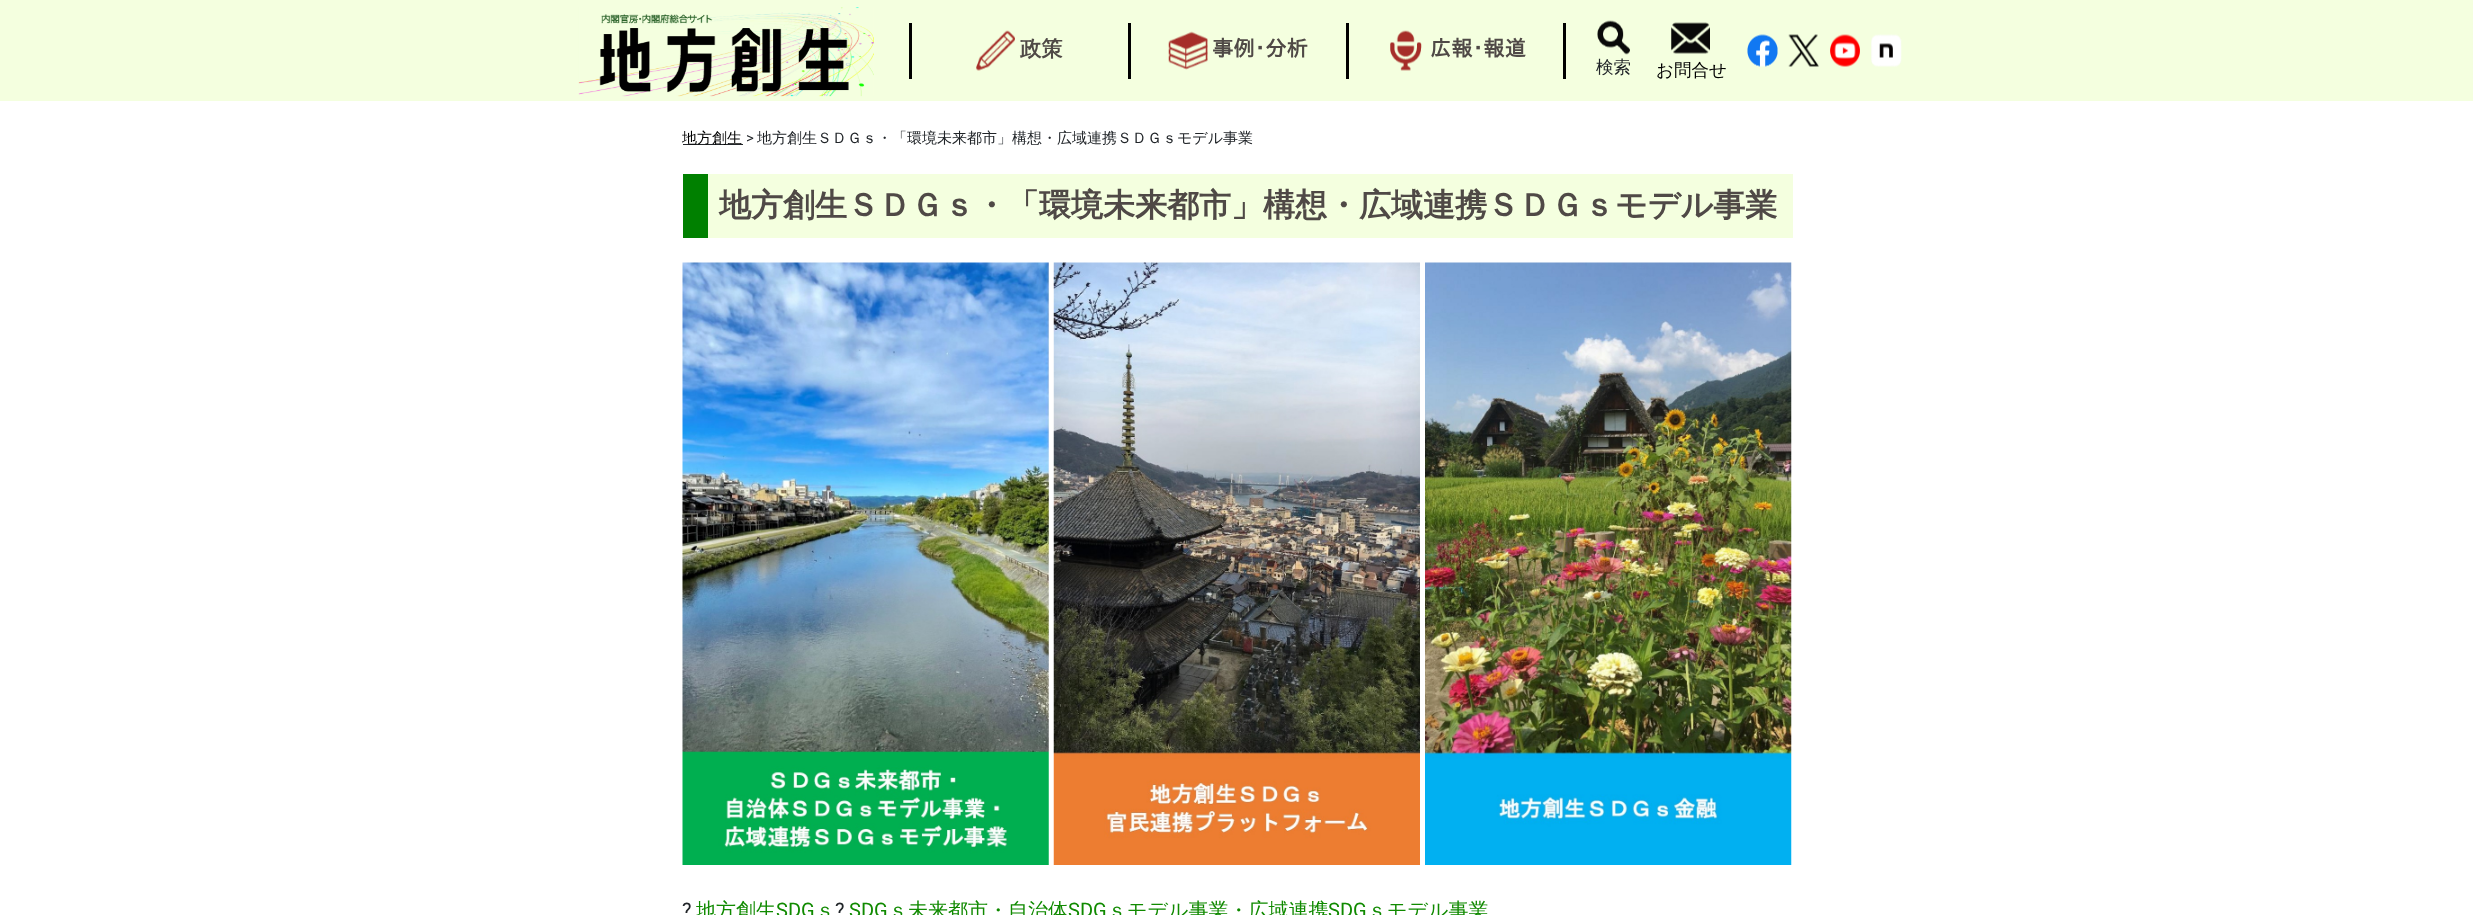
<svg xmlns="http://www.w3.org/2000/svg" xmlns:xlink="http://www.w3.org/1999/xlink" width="2473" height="915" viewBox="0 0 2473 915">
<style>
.cls-1{font:bold 21.25px WenQuanYi Zen Hei;fill:#4f4946}
.cls-2{font:bold 21.25px IPAPGothic;fill:#4f4946}
.cls-3{font:500 17.5px WenQuanYi Zen Hei;fill:#212529}
.cls-4{font:500 17.5px WenQuanYi Zen Hei;fill:#000000}
.cls-5{font:500 15px WenQuanYi Zen Hei;fill:#000000}
.cls-6{font:15px Roboto;fill:#212529}
.cls-7{font:500 15px WenQuanYi Zen Hei;fill:#212529}
.cls-8{font:bold 32px WenQuanYi Zen Hei;fill:#4f4946}
.cls-9{font:20px Roboto;fill:#212529}
.cls-10{font:500 20px WenQuanYi Zen Hei;fill:#108a00}
.cls-11{font:20px Roboto;fill:#108a00}
</style>
<rect width="100%" height="100%" fill="#ffffff"/>
<rect fill="#f4ffdf" x="0" y="0" width="2473" height="101"/>
<image xlink:href="image0.png" x="578" y="7" width="296" height="90"/>
<rect fill="#000000" x="909" y="23" width="3" height="56"/>
<image xlink:href="image1.png" x="976" y="30" width="39" height="41"/>
<rect fill="#000000" x="1128" y="23" width="3" height="56"/>
<image xlink:href="image2.png" x="1168" y="31" width="40" height="39"/>
<rect fill="#000000" x="1563" y="23" width="3" height="56"/>
<rect fill="#000000" x="1346" y="23" width="3" height="56"/>
<image xlink:href="image3.png" x="1390" y="30" width="32" height="41"/>
<image xlink:href="image4.png" x="1597" y="20" width="33" height="35"/>
<image xlink:href="image5.png" x="1671" y="22" width="39" height="32"/>
<image xlink:href="image6.png" x="1747" y="34" width="31" height="33"/>
<image xlink:href="image7.png" x="1788" y="34" width="31" height="33"/>
<image xlink:href="image8.png" x="1830" y="34" width="30" height="33"/>
<image xlink:href="image9.png" x="1871" y="34" width="31" height="33"/>
<rect fill="#212529" x="683" y="144" width="60" height="1"/>
<rect fill="#f4ffdf" x="708" y="174" width="1085" height="64"/>
<rect fill="#008000" x="683" y="174" width="25" height="64"/>
<image xlink:href="image10.png" x="682" y="262" width="367" height="603"/>
<image xlink:href="image11.png" x="1053" y="262" width="367" height="603"/>
<image xlink:href="image12.png" x="1425" y="262" width="367" height="603"/>
<text class="cls-1" x="1020" y="56">政策</text>
<text class="cls-2" x="1212" y="56">事例･分析</text>
<text class="cls-2" x="1430" y="56">広報･報道</text>
<text class="cls-3" x="1596" y="73">検索</text>
<text class="cls-4" x="1656" y="76">お問合せ</text>
<text class="cls-5" x="682" y="143">地方創生</text>
<text class="cls-6" x="746" y="143">&gt;</text>
<text class="cls-7" x="757" y="143">地方創生ＳＤＧｓ・「環境未来都市」構想・広域連携ＳＤＧｓモデル事業</text>
<text class="cls-8" x="719" y="216">地方創生ＳＤＧｓ・「環境未来都市」構想・広域連携ＳＤＧｓモデル事業</text>
<text class="cls-9" x="682" y="917">?</text>
<text class="cls-10" x="696" y="917">地方創生</text>
<text class="cls-11" x="776" y="917">SDG</text>
<text class="cls-10" x="815" y="917">ｓ</text>
<text class="cls-9" x="835" y="917">?</text>
<text class="cls-11" x="849" y="917">SDG</text>
<text class="cls-10" x="888" y="917">ｓ未来都市・自治体</text>
<text class="cls-11" x="1068" y="917">SDG</text>
<text class="cls-10" x="1107" y="917">ｓモデル事業・広域連携</text>
<text class="cls-11" x="1328" y="917">SDG</text>
<text class="cls-10" x="1367" y="917">ｓモデル事業</text>
</svg>
